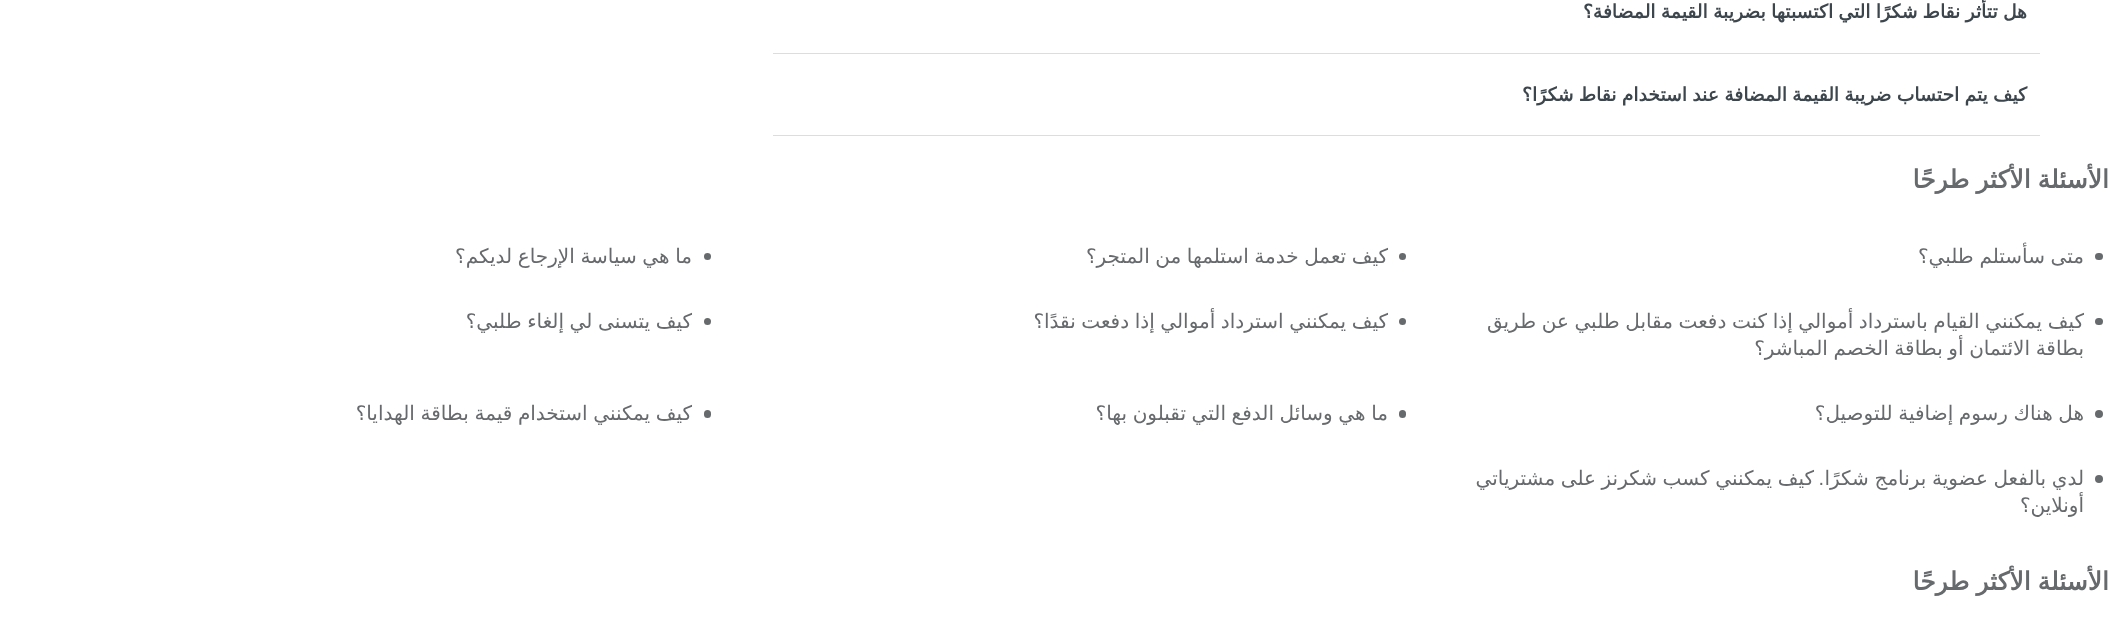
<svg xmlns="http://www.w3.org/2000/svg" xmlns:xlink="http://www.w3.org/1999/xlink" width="2108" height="626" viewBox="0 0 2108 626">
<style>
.cls-1{font:bold 18.75px DejaVu Sans;direction:rtl;fill:#3d464d}
.cls-2{font:bold 25px DejaVu Sans;direction:rtl;fill:#676a6c}
.cls-3{font:20px DejaVu Sans;direction:rtl;fill:#676a6c}
.cls-4{font:20px Liberation Sans;direction:rtl;fill:#676a6c}
</style>
<rect width="100%" height="100%" fill="#ffffff"/>
<rect fill="#dddddd" x="773" y="53" width="1267" height="1"/>
<rect fill="#dddddd" x="773" y="135" width="1267" height="1"/>
<rect fill="#676a6c" x="2095" y="253" width="8" height="7" rx="3.5"/>
<circle fill="#676a6c" cx="1402.5" cy="256.5" r="3.5"/>
<circle fill="#676a6c" cx="707.5" cy="256.5" r="3.5"/>
<rect fill="#676a6c" x="2095" y="318" width="8" height="7" rx="3.5"/>
<circle fill="#676a6c" cx="1402.5" cy="321.5" r="3.5"/>
<circle fill="#676a6c" cx="707.5" cy="321.5" r="3.5"/>
<circle fill="#676a6c" cx="2099" cy="414" r="4"/>
<rect fill="#676a6c" x="1399" y="410" width="7" height="8" rx="3.5"/>
<rect fill="#676a6c" x="704" y="410" width="7" height="8" rx="3.5"/>
<circle fill="#676a6c" cx="2099" cy="479" r="4"/>
<text class="cls-1" x="2027" y="18" word-spacing="-0.75">هل تتأثر نقاط شكرًا التي اكتسبتها بضريبة القيمة المضافة؟</text>
<text class="cls-1" x="2027" y="101" word-spacing="-0.75">كيف يتم احتساب ضريبة القيمة المضافة عند استخدام نقاط شكرًا؟</text>
<text class="cls-2" x="2109" y="188" word-spacing="-1">الأسئلة الأكثر طرحًا</text>
<text class="cls-3" x="2084" y="263" word-spacing="-0.75">متى سأستلم طلبي؟</text>
<text class="cls-3" x="1388" y="263" word-spacing="-0.75">كيف تعمل خدمة استلمها من المتجر؟</text>
<text class="cls-3" x="692" y="263" word-spacing="-0.75">ما هي سياسة الإرجاع لديكم؟</text>
<text class="cls-3"><tspan x="2084" y="328" word-spacing="-0.75">كيف يمكنني القيام باسترداد أموالي إذا كنت دفعت مقابل طلبي عن طريق</tspan><tspan x="2084" y="355" word-spacing="-0.75">بطاقة الائتمان أو بطاقة الخصم المباشر؟</tspan></text>
<text class="cls-3" x="1388" y="328" word-spacing="-0.75">كيف يمكنني استرداد أموالي إذا دفعت نقدًا؟</text>
<text class="cls-3" x="692" y="328" word-spacing="-0.75">كيف يتسنى لي إلغاء طلبي؟</text>
<text class="cls-3" x="2084" y="420" word-spacing="-0.75">هل هناك رسوم إضافية للتوصيل؟</text>
<text class="cls-3" x="1388" y="420" word-spacing="-0.75">ما هي وسائل الدفع التي تقبلون بها؟</text>
<text class="cls-3" x="692" y="420" word-spacing="-0.75">كيف يمكنني استخدام قيمة بطاقة الهدايا؟</text>
<text class="cls-3" x="2084" y="485" word-spacing="-0.75">لدي بالفعل عضوية برنامج شكرًا</text>
<text class="cls-4" x="1824" y="485">.</text>
<text class="cls-3" x="1814" y="485" word-spacing="-0.75">كيف يمكنني كسب شكرنز على مشترياتي</text>
<text class="cls-3" x="2084" y="512">أونلاين؟</text>
<text class="cls-2" x="2109" y="590" word-spacing="-1">الأسئلة الأكثر طرحًا</text>
</svg>
